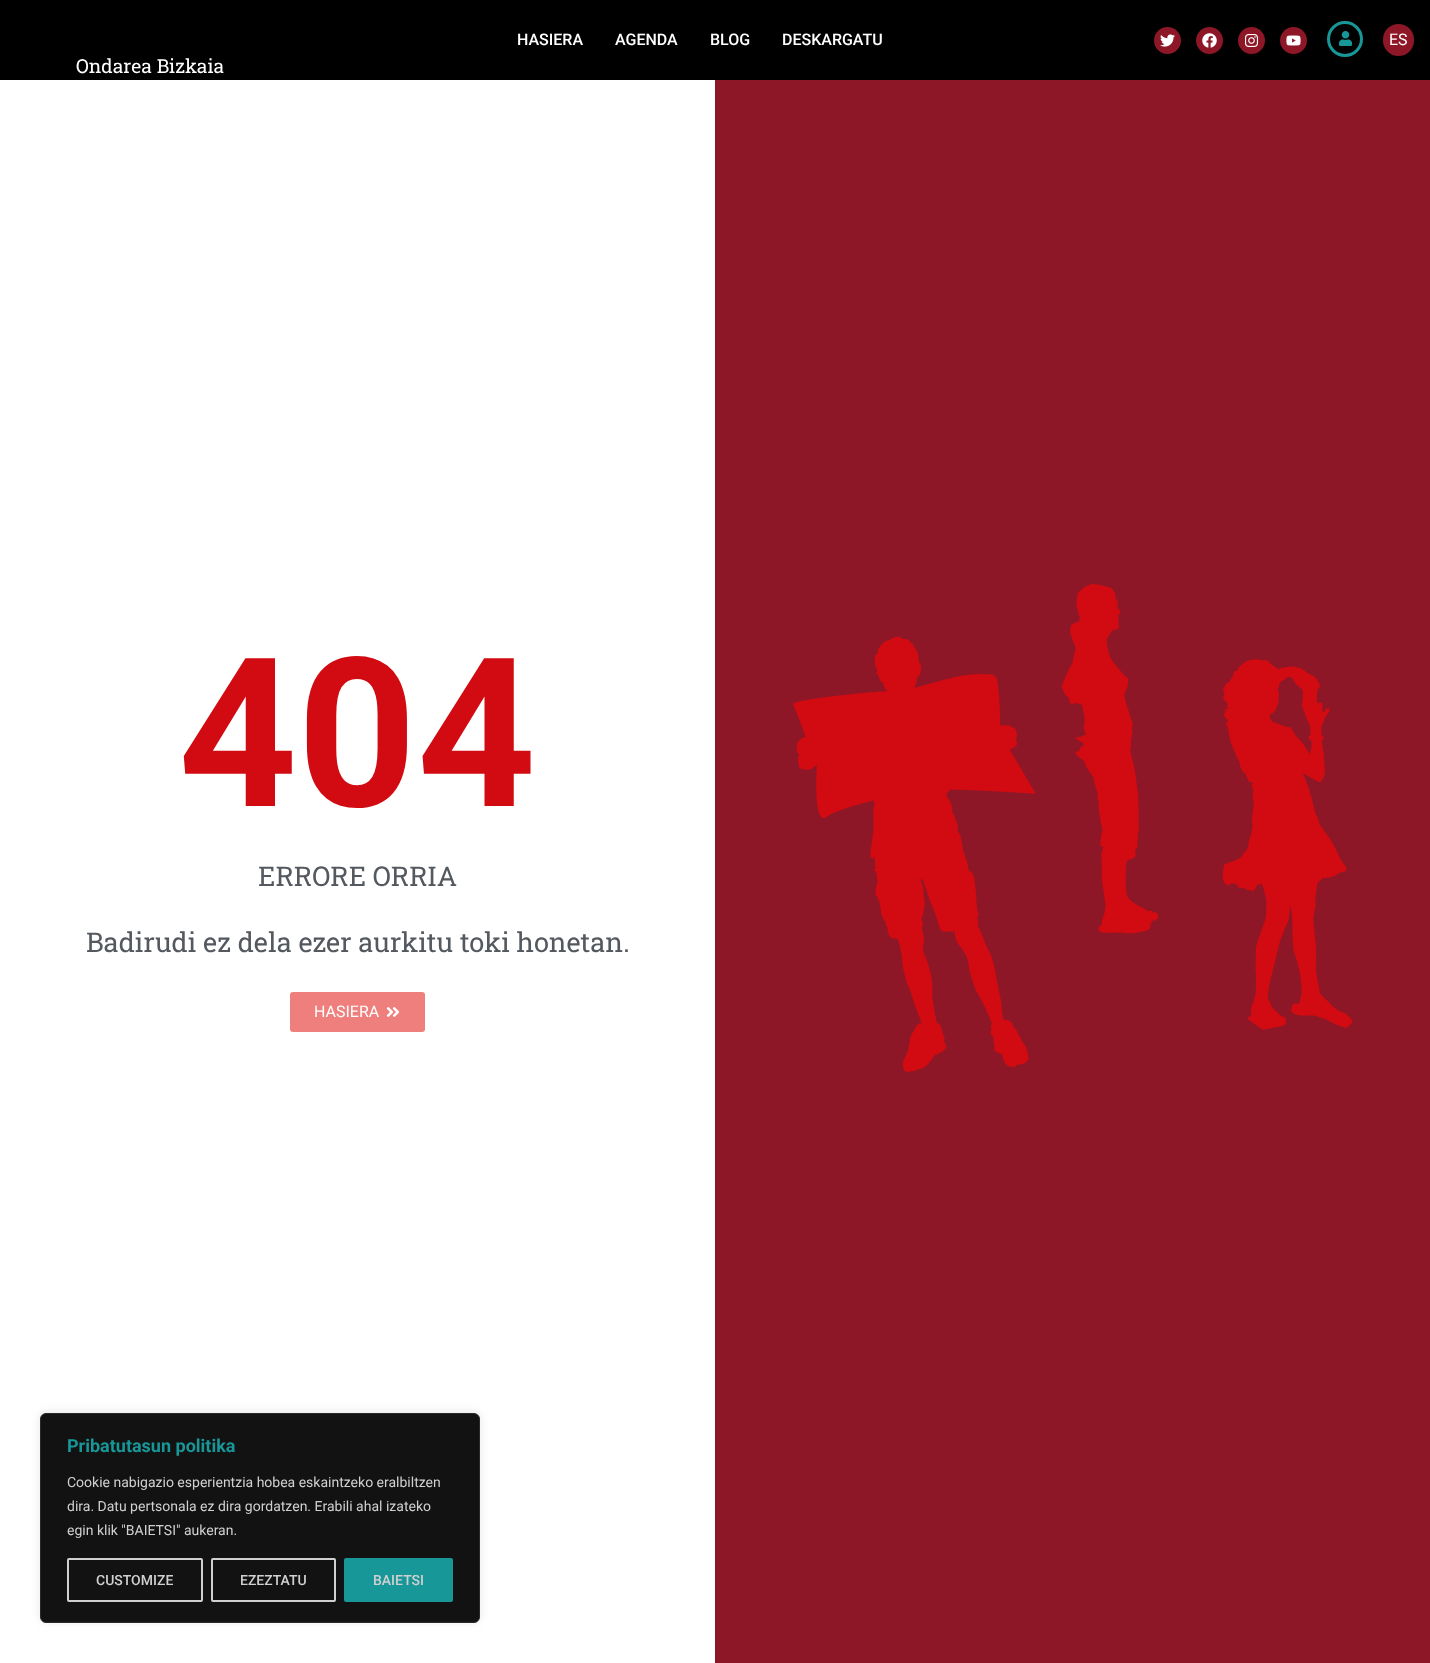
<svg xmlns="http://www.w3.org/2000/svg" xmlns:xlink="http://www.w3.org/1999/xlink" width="1430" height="1663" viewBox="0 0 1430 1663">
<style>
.cls-1{font:500 16px Roboto;fill:#ffffff}
.cls-2{font:16px Roboto;fill:#ffffff}
.cls-3{font:19.25px Roboto Slab;fill:#ffffff}
.cls-4{font:bold 208px Roboto;fill:#d20a11}
.cls-5{font:27.25px Roboto Slab;fill:#54595f}
.cls-6{font:bold 18px Roboto;fill:#189798}
.cls-7{font:14px Roboto;fill:#d0d0d0}
.cls-8{font:500 14px Roboto;fill:#d0d0d0}
</style>
<rect width="100%" height="100%" fill="#ffffff"/>
<rect fill="#000000" x="0" y="0" width="1430" height="80"/>
<circle fill="#8d1726" cx="1167.5" cy="40.5" r="13.5"/>
<image xlink:href="image0.png" x="1160" y="34" width="15" height="13"/>
<circle fill="#8d1726" cx="1209.5" cy="40.5" r="13.5"/>
<image xlink:href="image1.png" x="1202" y="33" width="15" height="15"/>
<circle fill="#8d1726" cx="1251.5" cy="40.5" r="13.5"/>
<image xlink:href="image2.png" x="1245" y="34" width="14" height="13"/>
<circle fill="#8d1726" cx="1293.5" cy="40.5" r="13.5"/>
<image xlink:href="image3.png" x="1286" y="35" width="15" height="11"/>
<circle fill="none" stroke="#189798" stroke-width="3" cx="1345" cy="39" r="16.5"/>
<image xlink:href="image4.png" x="1338" y="31" width="15" height="15"/>
<rect fill="#8d1726" x="1383" y="24" width="31" height="32" rx="15.5"/>
<rect fill="#ef7f7c" x="290" y="992" width="135" height="40" rx="3"/>
<image xlink:href="image5.png" x="386" y="1007" width="14" height="10"/>
<rect fill="#8d1726" x="715" y="80" width="715" height="1583"/>
<image xlink:href="image6.png" x="793" y="583" width="560" height="489"/>
<rect fill="#acabab" fill-opacity="0.3" filter="blur(5px)" x="40" y="1412" width="440" height="210" rx="6"/>
<rect fill="#121212" stroke="#2a2a2a" x="40.5" y="1413.5" width="439" height="209" rx="5.5"/>
<rect fill="none" stroke="#d0d0d0" stroke-width="2" x="68" y="1559" width="134" height="42" rx="1"/>
<rect fill="none" stroke="#d0d0d0" stroke-width="2" x="212" y="1559" width="123" height="42" rx="1"/>
<rect fill="#189798" stroke="#189798" stroke-width="2" x="345" y="1559" width="107" height="42" rx="1"/>
<text class="cls-1" x="517" y="45">HASIERA</text>
<text class="cls-1" x="615" y="45">AGENDA</text>
<text class="cls-1" x="710" y="45">BLOG</text>
<text class="cls-1" x="782" y="45">DESKARGATU</text>
<text class="cls-2" x="1389" y="45">ES</text>
<text class="cls-3" x="76" y="73">Ondarea Bizkaia</text>
<text class="cls-4" x="178" y="806">404</text>
<text class="cls-5" x="258" y="886">ERRORE ORRIA</text>
<text class="cls-5" x="86" y="952">Badirudi ez dela ezer aurkitu toki honetan.</text>
<text class="cls-2" x="314" y="1017">HASIERA</text>
<text class="cls-6" x="67" y="1452">Pribatutasun politika</text>
<text class="cls-7"><tspan x="67" y="1487">Cookie nabigazio esperientzia hobea eskaintzeko eralbiltzen</tspan><tspan x="67" y="1511">dira. Datu pertsonala ez dira gordatzen. Erabili ahal izateko</tspan><tspan x="67" y="1535">egin klik "BAIETSI" aukeran.</tspan></text>
<text class="cls-8" x="96" y="1585">CUSTOMIZE</text>
<text class="cls-8" x="240" y="1585">EZEZTATU</text>
<text class="cls-8" x="373" y="1585">BAIETSI</text>
</svg>
